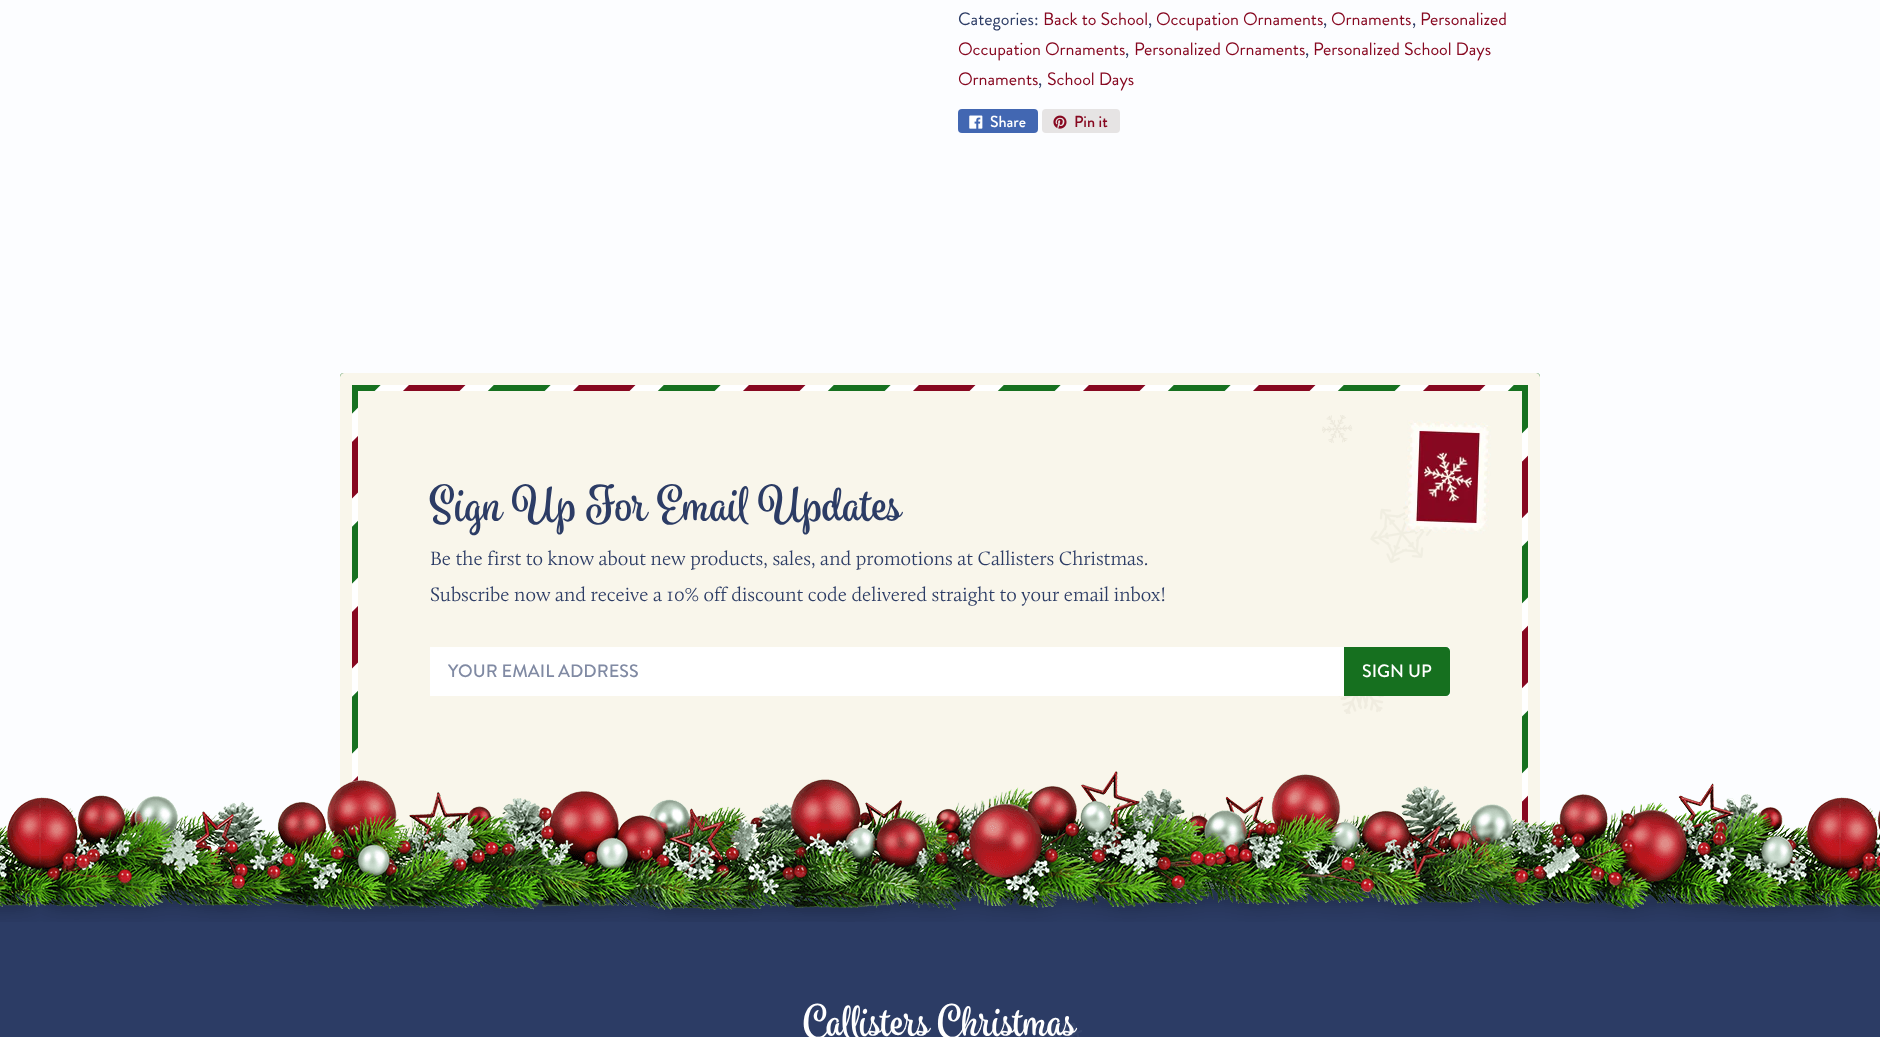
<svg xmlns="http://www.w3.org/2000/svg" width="1880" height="1037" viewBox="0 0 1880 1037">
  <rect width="100%" height="100%" fill="#2c3c65"/>
  <image x="1037" y="1023" width="45" height="14" href="img/1.png"/>
  <path d="M0 0h1880v872H0z" fill="#fcfdff"/>
  <rect x="958" y="109" width="80" height="24" rx="4" fill="#4267b2"/>
  <image x="969" y="115" width="14" height="14" href="img/2.png"/>
  <rect x="1042" y="109" width="78" height="24" rx="4" fill="#e6e4e4"/>
  <image x="1053" y="115" width="14" height="14" href="img/3.png"/>
  <image x="340" y="373" width="1200" height="499" href="img/4.png"/>
  <path d="M344 373H1536C1538 373 1540 375 1540 377V868C1540 870 1538 872 1536 872H344C342 872 340 870 340 868V377C340 375 342 373 344 373ZM352 385H1528V872H352V868Z" fill="#f9f6eb" fill-rule="evenodd"/>
  <path d="M358 391h1164v475H358z" fill="#f9f6eb"/>
  <image x="1322" y="415" width="110" height="299" href="img/5.png"/>
  <image x="1405" y="420" width="86" height="114" href="img/6.png"/>
  <path d="M430 647h1020v49H430z" fill="#fff"/>
  <path d="M1344 647H1446C1448 647 1450 649 1450 651V692C1450 694 1448 696 1446 696H1344Z" fill="#16701f"/>
  <image x="0" y="771" width="1880" height="151" href="img/7.png"/>
  <text x="958" y="25" font-family="Brandon Grotesque" font-size="18" fill="#2c3c65">Categories:</text>
  <text x="1043" y="25" font-family="Brandon Grotesque" font-size="18" fill="#870820">Back to School</text>
  <text x="1148" y="25" font-family="Brandon Grotesque" font-size="18" fill="#2c3c65">,</text>
  <text x="1156" y="25" font-family="Brandon Grotesque" font-size="18" fill="#870820">Occupation Ornaments</text>
  <text x="1323" y="25" font-family="Brandon Grotesque" font-size="18" fill="#2c3c65">,</text>
  <text x="1331" y="25" font-family="Brandon Grotesque" font-size="18" fill="#870820">Ornaments</text>
  <text x="1412" y="25" font-family="Brandon Grotesque" font-size="18" fill="#2c3c65">,</text>
  <g font-family="Brandon Grotesque" font-size="18" fill="#870820">
    <text x="1420" y="25">Personalized</text>
    <text x="958" y="55">Occupation Ornaments</text>
  </g>
  <text x="1125" y="55" font-family="Brandon Grotesque" font-size="18" fill="#2c3c65">,</text>
  <text x="1134" y="55" font-family="Brandon Grotesque" font-size="18" fill="#870820">Personalized Ornaments</text>
  <text x="1305" y="55" font-family="Brandon Grotesque" font-size="18" fill="#2c3c65">,</text>
  <g font-family="Brandon Grotesque" font-size="18" fill="#870820">
    <text x="1313" y="55">Personalized School Days</text>
    <text x="958" y="85">Ornaments</text>
  </g>
  <text x="1038" y="85" font-family="Brandon Grotesque" font-size="18" fill="#2c3c65">,</text>
  <text x="1047" y="85" font-family="Brandon Grotesque" font-size="18" fill="#870820">School Days</text>
  <text x="990" y="127" font-family="Brandon Grotesque" font-size="16" font-weight="500" fill="#fff">Share</text>
  <text x="1074" y="127" font-family="Brandon Grotesque" font-size="16" font-weight="500" fill="#870820">Pin it</text>
  <text x="430" y="520" font-family="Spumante" font-size="48" font-weight="bold" fill="#2c3c65">Sign Up For Email Updates</text>
  <g font-family="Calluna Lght" font-size="20" font-weight="300" fill="#2c3c65">
    <text x="430" y="565">Be the first to know about new products, sales, and promotions at Callisters Christmas.</text>
    <text x="430" y="601">Subscribe now and receive a 10% off discount code delivered straight to your email inbox!</text>
  </g>
  <text x="448" y="677" font-family="Brandon Grotesque" font-size="18" font-weight="500" fill="#808aa3">YOUR EMAIL ADDRESS</text>
  <text x="1362" y="677" font-family="Brandon Grotesque" font-size="18" font-weight="500" fill="#fff">SIGN UP</text>
  <text x="804" y="1035" font-family="Spumante" font-size="42" font-weight="bold" fill="#fff">Callisters Christmas</text>
</svg>
